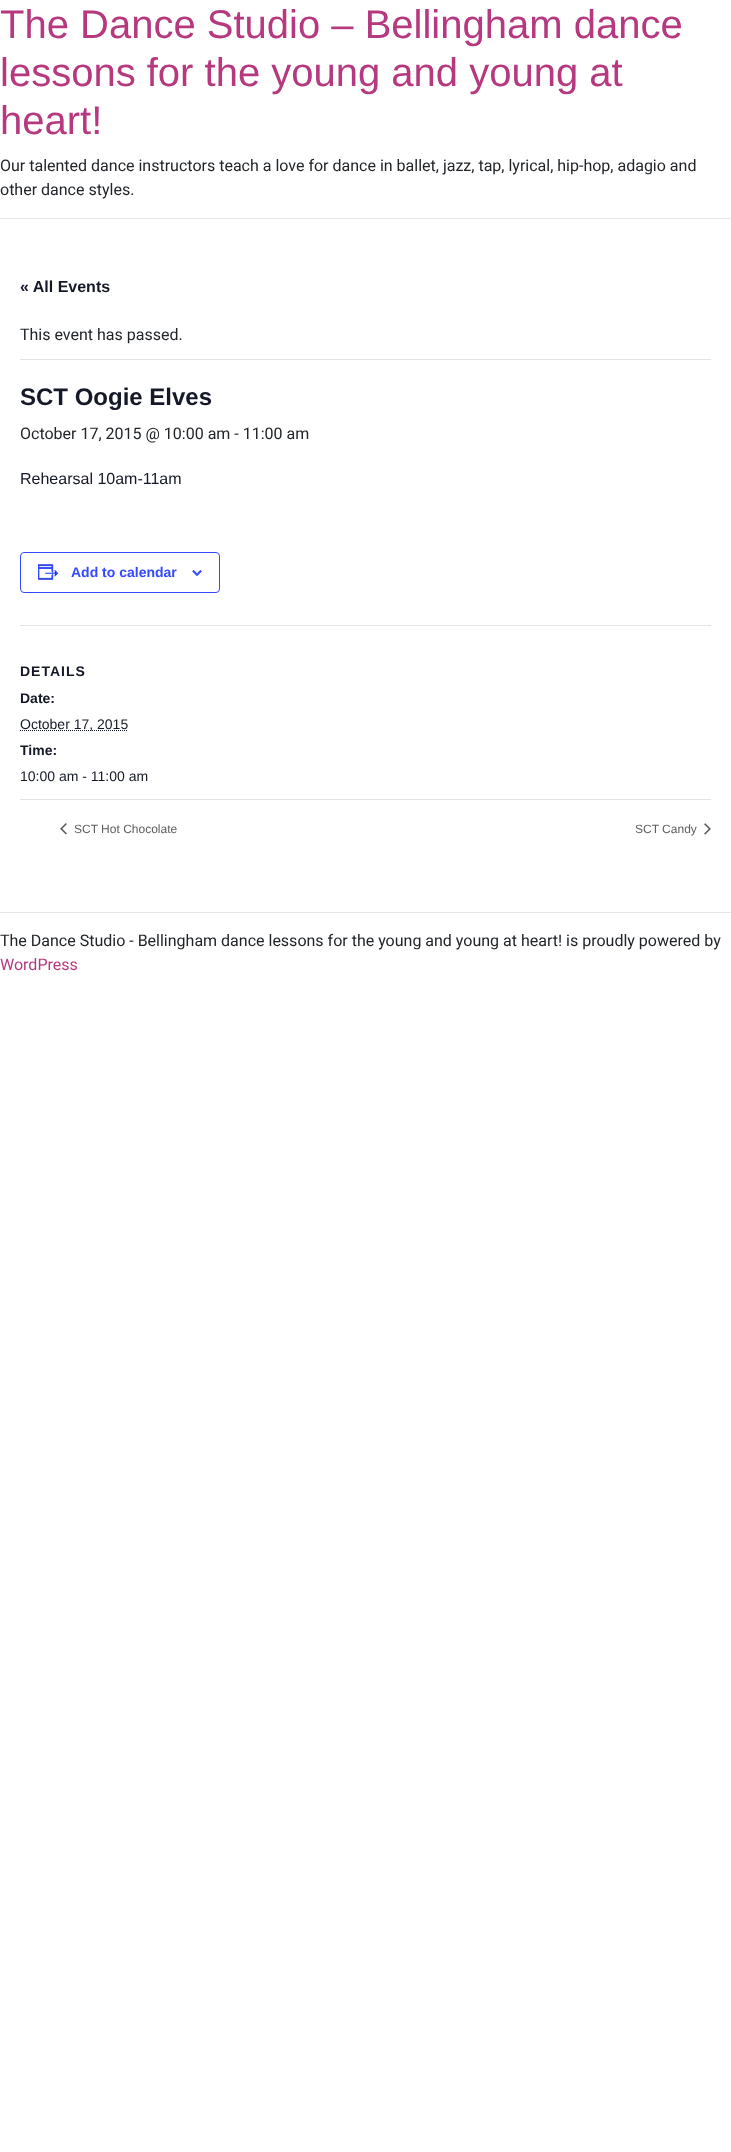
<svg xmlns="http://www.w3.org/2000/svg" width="731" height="2152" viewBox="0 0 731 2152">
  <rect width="100%" height="100%" fill="#fff"/>
  <path d="M0 218h731v1H0z" fill="#e6e6e6"/>
  <path d="M20 359h691v1H20z" fill="#e4e4e4"/>
  <rect x="20.5" y="552.5" width="199" height="40" rx="3.5" fill="none" stroke="#334aff"/>
  <image x="38" y="564" width="21" height="16" href="img/1.png"/>
  <image x="192" y="570" width="10" height="6" href="img/2.png"/>
  <path d="M20 625h691v1H20z" fill="#e4e4e4"/>
  <path d="M20 730.5H128" fill="none" stroke="#141827" stroke-dasharray="1 1"/>
  <path d="M20 799h691v1H20z" fill="#e4e4e4"/>
  <image x="60" y="823" width="7" height="12" href="img/3.png"/>
  <image x="704" y="823" width="7" height="12" href="img/4.png"/>
  <path d="M0 912h731v1H0z" fill="#e6e6e6"/>
  <g font-family="Liberation Sans" font-size="40" fill="#b6397f">
    <text x="0" y="38">The Dance Studio – Bellingham dance</text>
    <text x="0" y="86">lessons for the young and young at</text>
    <text x="0" y="134">heart!</text>
  </g>
  <g font-family="Roboto" font-size="16" fill="#212529">
    <text x="0" y="171">Our talented dance instructors teach a love for dance in ballet, jazz, tap, lyrical, hip-hop, adagio and</text>
    <text x="0" y="195">other dance styles.</text>
  </g>
  <text x="20" y="292" font-family="Liberation Sans" font-size="16" font-weight="bold" fill="#141827">« All Events</text>
  <text x="20" y="340" font-family="Roboto" font-size="16" fill="#212529">This event has passed.</text>
  <text x="20" y="405" font-family="Liberation Sans" font-size="24" font-weight="bold" fill="#141827">SCT Oogie Elves</text>
  <text x="20" y="439" font-family="Roboto" font-size="16" fill="#212529">October 17, 2015 @ 10:00 am - 11:00 am</text>
  <text x="20" y="484" font-family="Liberation Sans" font-size="16" fill="#141827">Rehearsal 10am-11am</text>
  <text x="71" y="577" font-family="Liberation Sans" font-size="14" font-weight="bold" fill="#334aff">Add to calendar</text>
  <text x="20" y="676" font-family="Liberation Sans" font-size="14" font-weight="bold" letter-spacing="1" fill="#141827">DETAILS</text>
  <text x="20" y="703" font-family="Liberation Sans" font-size="14" font-weight="bold" fill="#141827">Date:</text>
  <text x="20" y="729" font-family="Liberation Sans" font-size="14" fill="#141827">October 17, 2015</text>
  <text x="20" y="755" font-family="Liberation Sans" font-size="14" font-weight="bold" fill="#141827">Time:</text>
  <text x="20" y="781" font-family="Liberation Sans" font-size="14" fill="#141827">10:00 am - 11:00 am</text>
  <g font-family="Liberation Sans" font-size="12" fill="#5d5d5d">
    <text x="74" y="833">SCT Hot Chocolate</text>
    <text x="635" y="833">SCT Candy</text>
  </g>
  <text x="0" y="946" font-family="Roboto" font-size="16" fill="#212529">The Dance Studio - Bellingham dance lessons for the young and young at heart! is proudly powered by</text>
  <text x="0" y="970" font-family="Roboto" font-size="16" fill="#b6397f">WordPress</text>
</svg>
